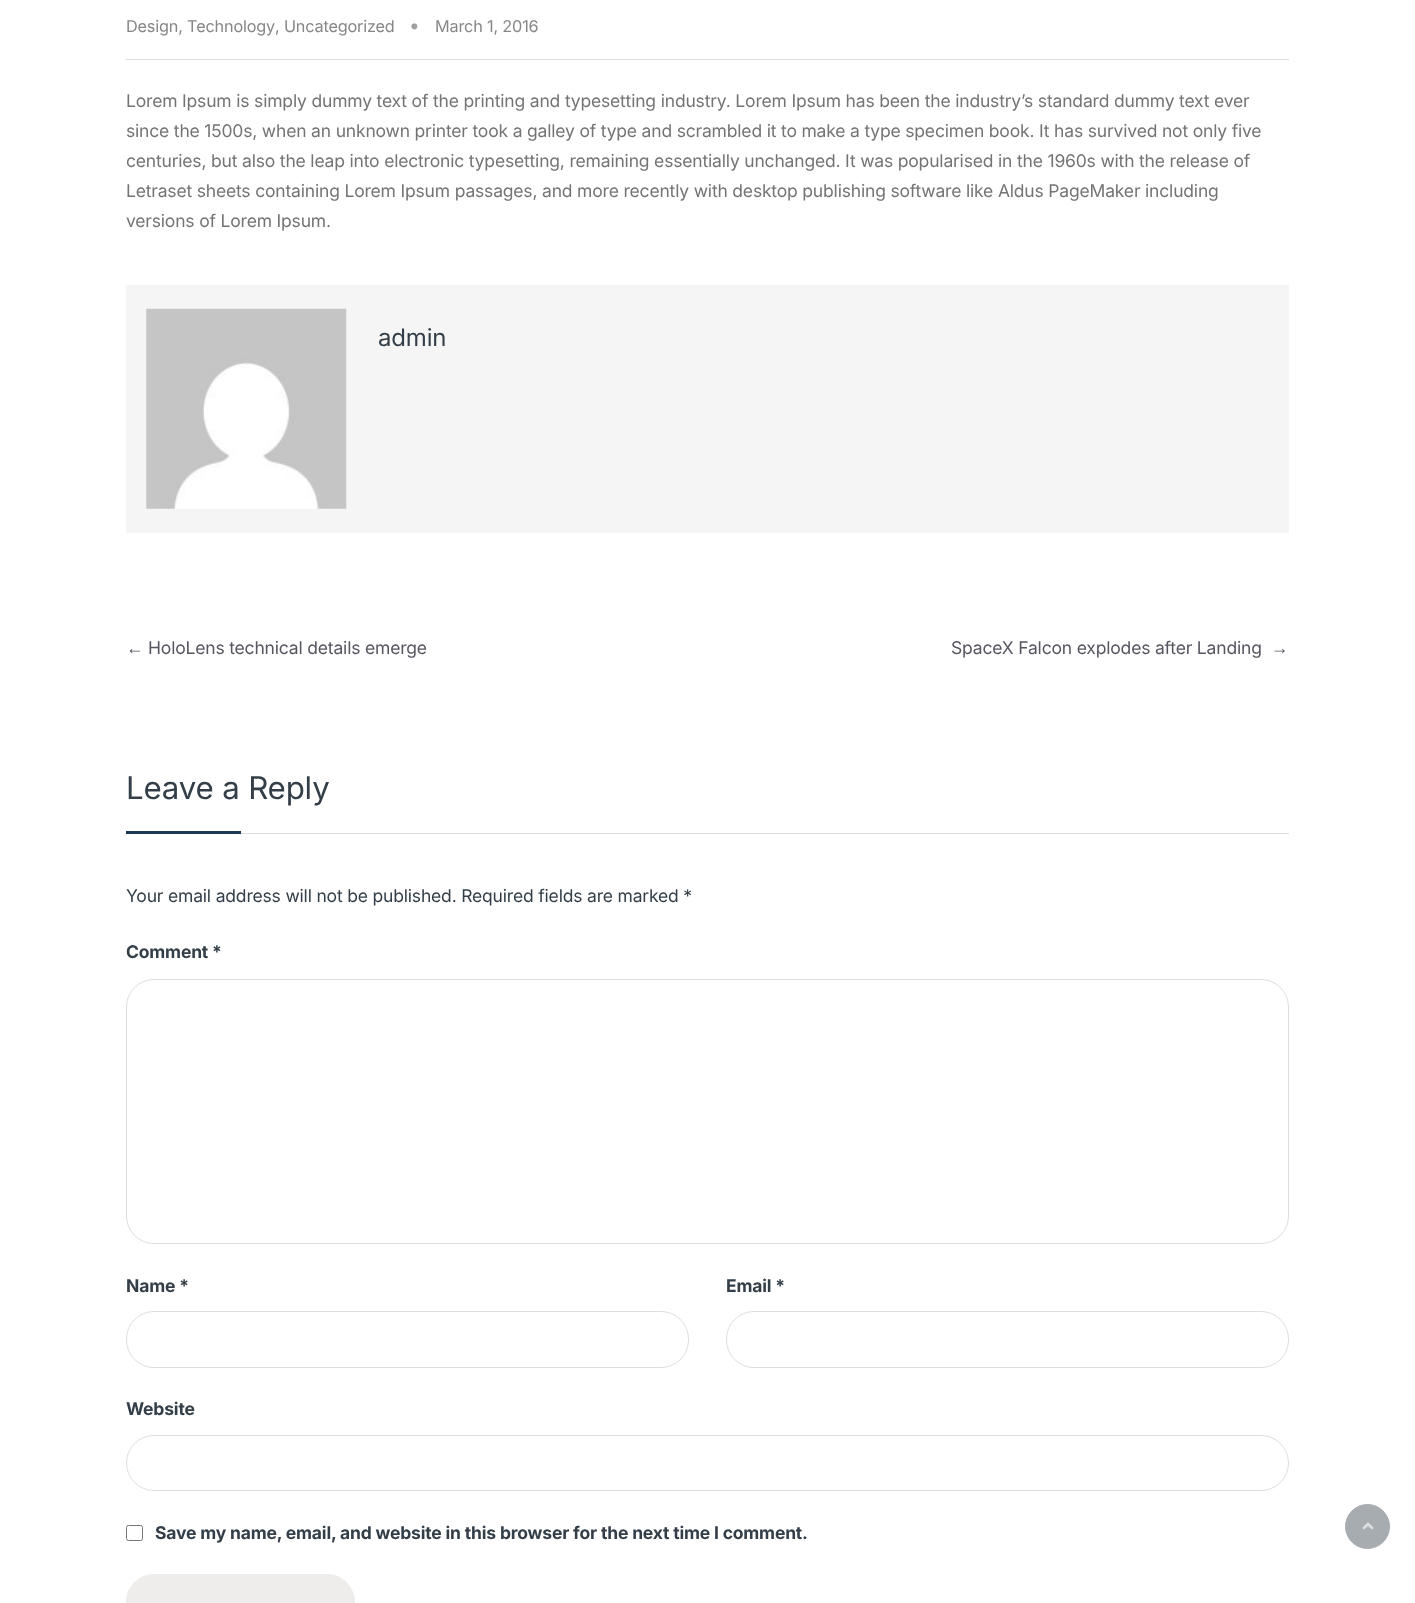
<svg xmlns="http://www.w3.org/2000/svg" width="1415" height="1603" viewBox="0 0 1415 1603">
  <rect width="100%" height="100%" fill="#fff"/>
  <path d="M126 59h1163v1H126z" fill="#ddd"/>
  <image x="411" y="23" width="7" height="7" href="img/1.png"/>
  <path d="M126 285h1163v248H126z" fill="#f5f5f5"/>
  <image x="146" y="308" width="201" height="201" href="img/2.png"/>
  <path d="M241 833h1048v1H241z" fill="#ddd"/>
  <path d="M126 831h115v3H126z" fill="#1e3957"/>
  <rect x="126.5" y="979.5" width="1162" height="264" rx="27.5" fill="none" stroke="#ddd"/>
  <rect x="126.5" y="1311.5" width="562" height="56" rx="27.5" fill="none" stroke="#ddd"/>
  <rect x="726.5" y="1311.5" width="562" height="56" rx="27.5" fill="none" stroke="#ddd"/>
  <rect x="126.5" y="1435.5" width="1162" height="55" rx="27.5" fill="none" stroke="#ddd"/>
  <rect x="126.5" y="1525.5" width="16" height="15" rx="2" fill="none" stroke="#767676"/>
  <rect x="126.5" y="1574.5" width="228" height="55" rx="27.5" fill="#efecec" stroke="#efecec"/>
  <circle cx="1367.5" cy="1526.5" r="22" fill="#a7acb1" stroke="#a7acb1"/>
  <image x="1362" y="1522" width="12" height="8" href="img/3.png"/>
  <g font-family="Inter" font-size="16.25" letter-spacing="-0.18" fill="#878787">
    <text x="126" y="32">Design, Technology</text>
    <text x="275" y="32">, Uncategorized</text>
    <text x="435" y="32">March 1, 2016</text>
  </g>
  <g font-family="Inter" font-size="17.5" letter-spacing="-0.18" fill="#747474">
    <text x="126" y="107">Lorem Ipsum is simply dummy text of the printing and typesetting industry. Lorem Ipsum has been the industry’s standard dummy text ever</text>
    <text x="126" y="137">since the 1500s, when an unknown printer took a galley of type and scrambled it to make a type specimen book. It has survived not only five</text>
    <text x="126" y="167">centuries, but also the leap into electronic typesetting, remaining essentially unchanged. It was popularised in the 1960s with the release of</text>
    <text x="126" y="197">Letraset sheets containing Lorem Ipsum passages, and more recently with desktop publishing software like Aldus PageMaker including</text>
    <text x="126" y="227">versions of Lorem Ipsum.</text>
  </g>
  <text x="378" y="346" font-family="Inter" font-size="24" letter-spacing="-0.18" fill="#333e48">admin</text>
  <text x="126" y="654" font-family="Liberation Sans" font-size="17.5" letter-spacing="-0.18" fill="#575560">←</text>
  <g font-family="Inter" font-size="17.5" letter-spacing="-0.18" fill="#575560">
    <text x="148" y="654">HoloLens technical details emerge</text>
    <text x="951" y="654">SpaceX Falcon explodes after Landing</text>
  </g>
  <text x="1271" y="654" font-family="Liberation Sans" font-size="17.5" letter-spacing="-0.18" fill="#575560">→</text>
  <text x="126" y="799" font-family="Inter" font-size="31.25" letter-spacing="-0.18" fill="#333e48">Leave a Reply</text>
  <text x="126" y="902" font-family="Inter" font-size="17.5" letter-spacing="-0.18" fill="#333e48">Your email address will not be published. Required fields are marked *</text>
  <g font-family="Inter" font-size="17.5" font-weight="bold" letter-spacing="-0.18" fill="#333e48">
    <text x="126" y="958">Comment *</text>
    <text x="126" y="1292">Name *</text>
    <text x="726" y="1292">Email *</text>
    <text x="126" y="1415">Website</text>
    <text x="155" y="1539">Save my name, email, and website in this browser for the next time I comment.</text>
  </g>
</svg>
